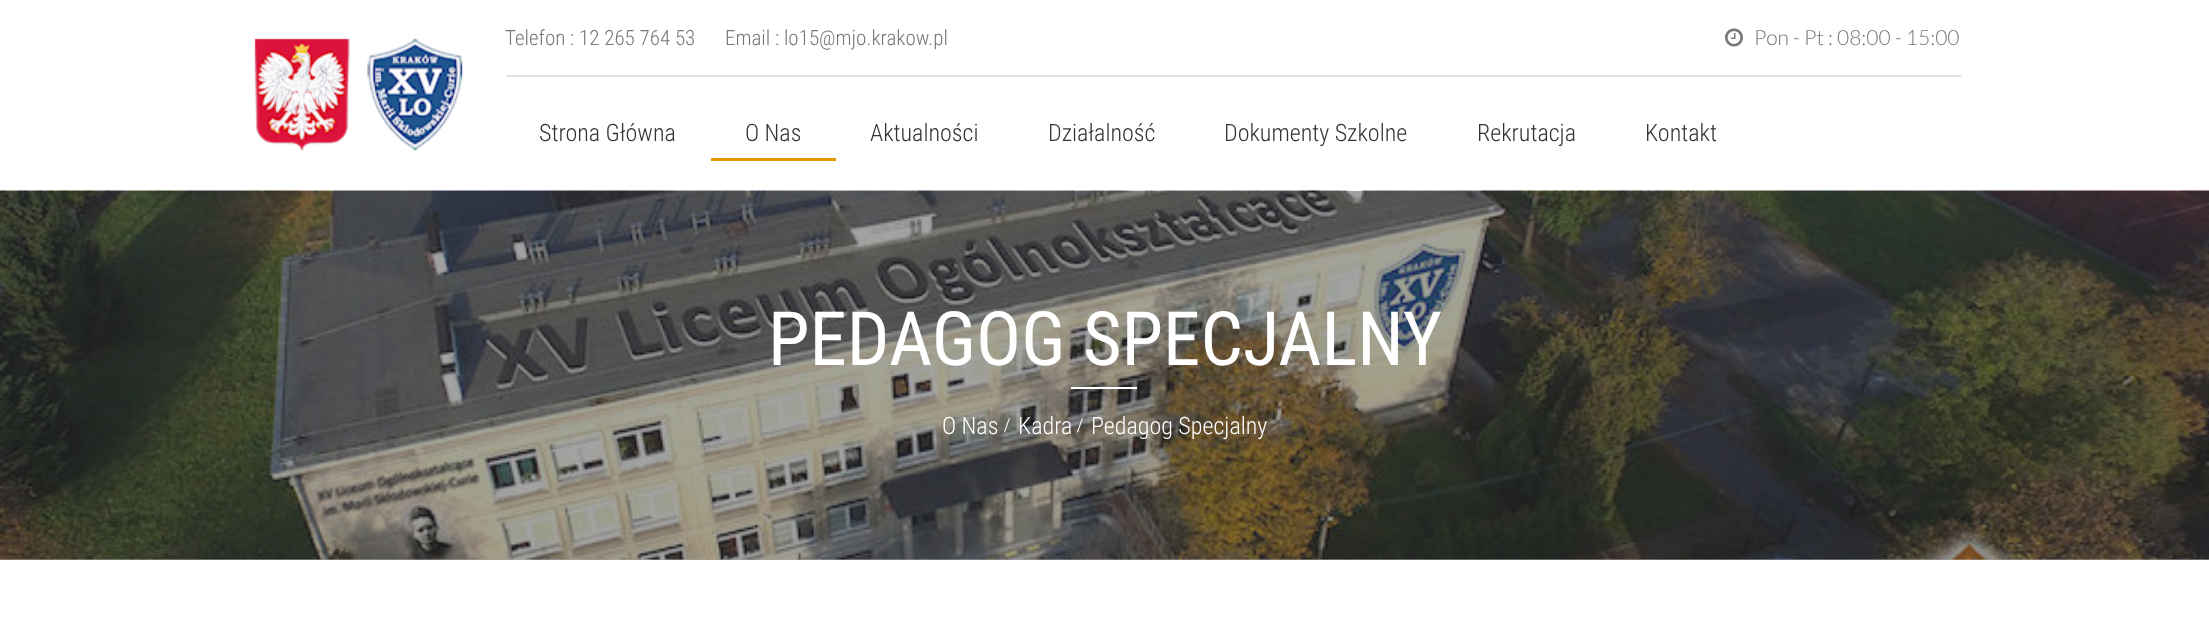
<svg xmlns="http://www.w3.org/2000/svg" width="2209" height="618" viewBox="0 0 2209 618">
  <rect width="100%" height="100%" fill="#fff"/>
  <path d="M0 559h2209v1H0z" fill="#a3a3a3"/>
  <image x="254" y="38" width="209" height="113" href="img/1.png"/>
  <path d="M506 75h1455v2H506z" fill="#e1e1e1"/>
  <image x="1725" y="28" width="18" height="19" href="img/2.png"/>
  <path d="M711 158h125v3H711z" fill="#e79800"/>
  <image x="0" y="190" width="2209" height="370" href="img/3.png"/>
  <path d="M1071 387h66v2H1071z" fill="#fff"/>
  <g font-family="Roboto Condensed" font-size="21" font-weight="300" fill="#777">
    <text x="505" y="45">Telefon : 12 265 764 53</text>
    <text x="725" y="45">Email : lo15@mjo.krakow.pl</text>
  </g>
  <text x="1754" y="45" font-family="Lato" font-size="21" font-weight="300" fill="#777">Pon - Pt : 08:00 - 15:00</text>
  <g font-family="Roboto Condensed" font-size="24" font-weight="300" fill="#333">
    <text x="539" y="141">Strona Główna</text>
    <text x="745" y="141">O Nas</text>
    <text x="870" y="141">Aktualności</text>
    <text x="1048" y="141">Działalność</text>
    <text x="1224" y="141">Dokumenty Szkolne</text>
    <text x="1477" y="141">Rekrutacja</text>
    <text x="1645" y="141">Kontakt</text>
  </g>
  <text x="768" y="365" font-family="Roboto Condensed" font-size="75" fill="#fff">PEDAGOG SPECJALNY</text>
  <text x="942" y="434" font-family="Roboto Condensed" font-size="24" font-weight="300" fill="#fff">O Nas</text>
  <text x="1004" y="432" font-family="Liberation Serif" font-size="21" fill="#fff">/</text>
  <text x="1018" y="434" font-family="Roboto Condensed" font-size="24" font-weight="300" fill="#fff">Kadra</text>
  <text x="1077" y="432" font-family="Liberation Serif" font-size="21" fill="#fff">/</text>
  <text x="1091" y="434" font-family="Roboto Condensed" font-size="24" font-weight="300" fill="#fff">Pedagog Specjalny</text>
</svg>
